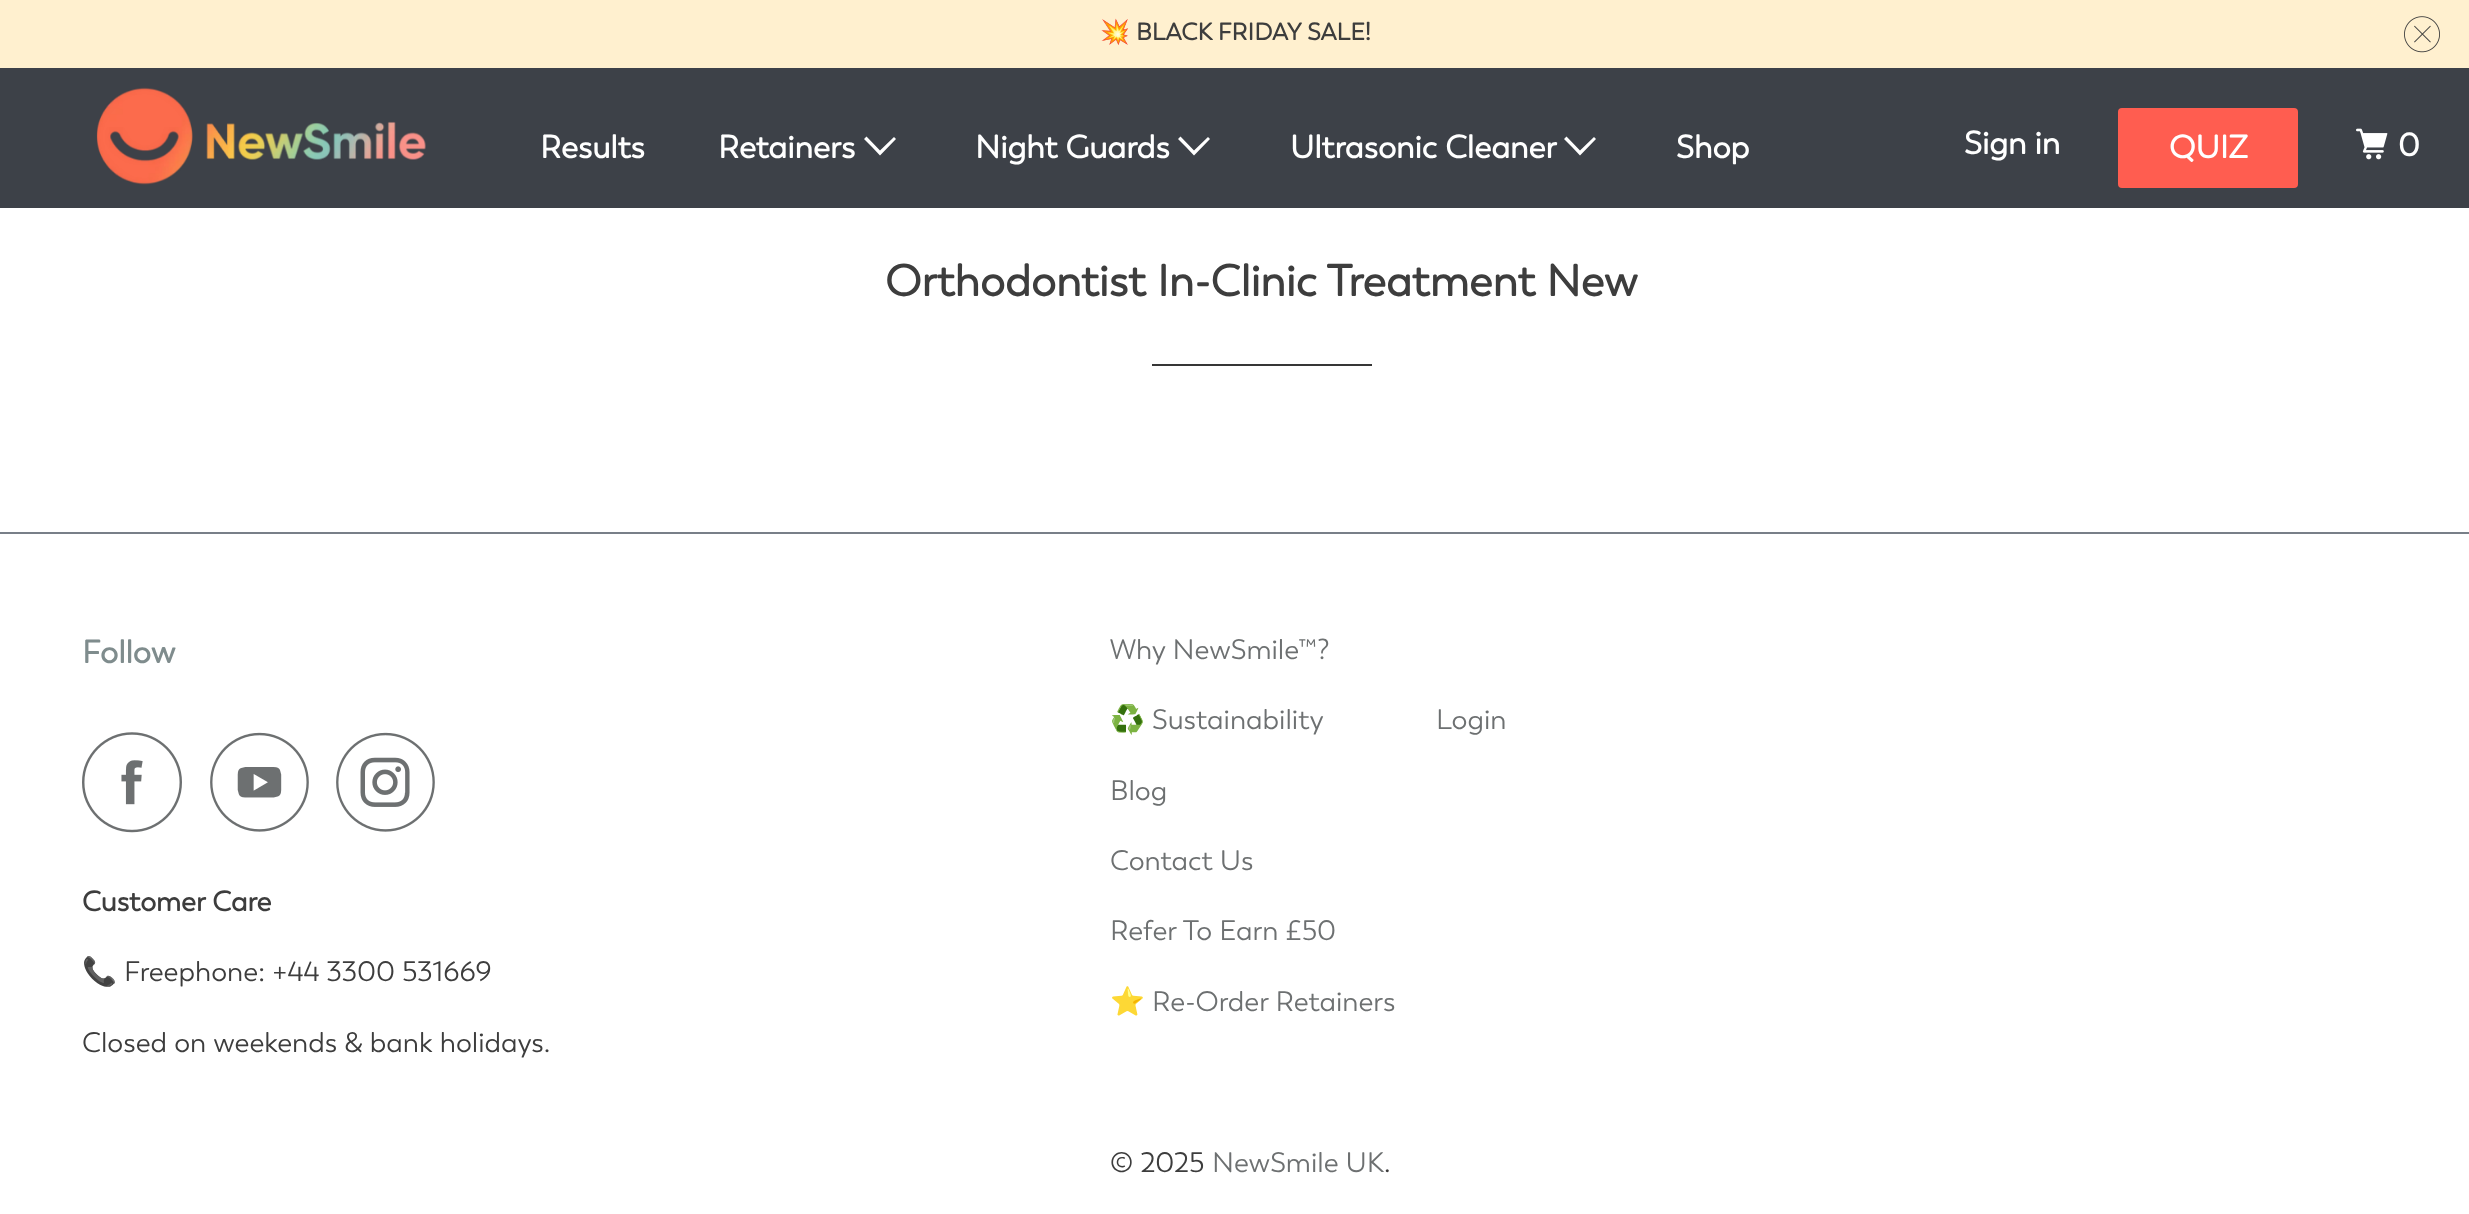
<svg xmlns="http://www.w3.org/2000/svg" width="2469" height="1214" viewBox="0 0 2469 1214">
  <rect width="100%" height="100%" fill="#fff"/>
  <path d="M0 0h2469v68H0z" fill="#fff0cf"/>
  <image x="2404" y="16" width="36" height="37" href="img/1.png"/>
  <path d="M0 68h2469v140H0z" fill="#3d4148"/>
  <image x="96" y="87" width="330" height="98" href="img/2.png"/>
  <path d="M872 147L864 139L866.5 136.5L880 150.5L894 137L896 139L880 155.5Z" fill="#fff"/>
  <path d="M1186 147L1178 139L1180.5 136.5L1194 150.5L1208 137L1210 139L1194 155.5Z" fill="#fff"/>
  <path d="M1572 147L1564 139L1566.5 136.5L1580 150.5L1594 137L1596 139L1580 155.5Z" fill="#fff"/>
  <rect x="2118" y="108" width="180" height="80" rx="4" fill="#ff5d50"/>
  <image x="2356" y="128" width="32" height="32" href="img/3.png"/>
  <path d="M1152 364h220v2H1152z" fill="#363636"/>
  <path d="M0 532h2469v2H0z" fill="#787f88"/>
  <image x="82" y="732" width="100" height="101" href="img/4.png"/>
  <image x="210" y="732" width="99" height="100" href="img/5.png"/>
  <image x="336" y="732" width="99" height="100" href="img/6.png"/>
  <text x="1100" y="40" font-family="Noto Color Emoji" font-size="24" font-weight="bold" fill="#3d3d3d">💥</text>
  <text x="1136" y="40" font-family="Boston" font-size="24" font-weight="bold" fill="#3d3d3d">BLACK FRIDAY SALE!</text>
  <g font-family="Boston" font-size="32" font-weight="bold" fill="#fff">
    <text x="540" y="158">Results</text>
    <text x="718" y="158">Retainers</text>
    <text x="975" y="158">Night Guards</text>
    <text x="1290" y="158">Ultrasonic Cleaner</text>
    <text x="1676" y="158">Shop</text>
    <text x="1964" y="154">Sign in</text>
    <text x="2169" y="158">QUIZ</text>
    <text x="2398" y="156">0</text>
  </g>
  <text x="885" y="296" font-family="Boston" font-size="44" font-weight="bold" fill="#3d3d3d">Orthodontist In-Clinic Treatment New</text>
  <text x="82" y="663" font-family="Boston" font-size="32" font-weight="bold" fill="#7f8c8d">Follow</text>
  <text x="82" y="911" font-family="Boston" font-size="28" font-weight="bold" fill="#3d3d3d">Customer Care</text>
  <text x="82" y="981" font-family="Noto Color Emoji" font-size="28" fill="#3d3d3d">📞</text>
  <g font-family="Boston" font-size="28" fill="#3d3d3d">
    <text x="124" y="981">Freephone: +44 3300 531669</text>
    <text x="82" y="1052">Closed on weekends &amp; bank holidays.</text>
  </g>
  <text x="1110" y="659" font-family="Boston" font-size="28" fill="#6d7071">Why NewSmile™?</text>
  <text x="1110" y="729" font-family="Noto Color Emoji" font-size="28" fill="#3d3d3d">♻️</text>
  <g font-family="Boston" font-size="28" fill="#6d7071">
    <text x="1152" y="729">Sustainability</text>
    <text x="1436" y="729">Login</text>
    <text x="1110" y="800">Blog</text>
    <text x="1110" y="870">Contact Us</text>
    <text x="1110" y="940">Refer To Earn £50</text>
  </g>
  <text x="1110" y="1011" font-family="Noto Color Emoji" font-size="28" fill="#6d7071">⭐️</text>
  <text x="1152" y="1011" font-family="Boston" font-size="28" fill="#6d7071">Re-Order Retainers</text>
  <text x="1110" y="1172" font-family="Boston" font-size="28" fill="#3d3d3d">© 2025</text>
  <text x="1212" y="1172" font-family="Boston" font-size="28" fill="#6d7071">NewSmile UK</text>
  <text x="1384" y="1172" font-family="Boston" font-size="28" fill="#3d3d3d">.</text>
</svg>
